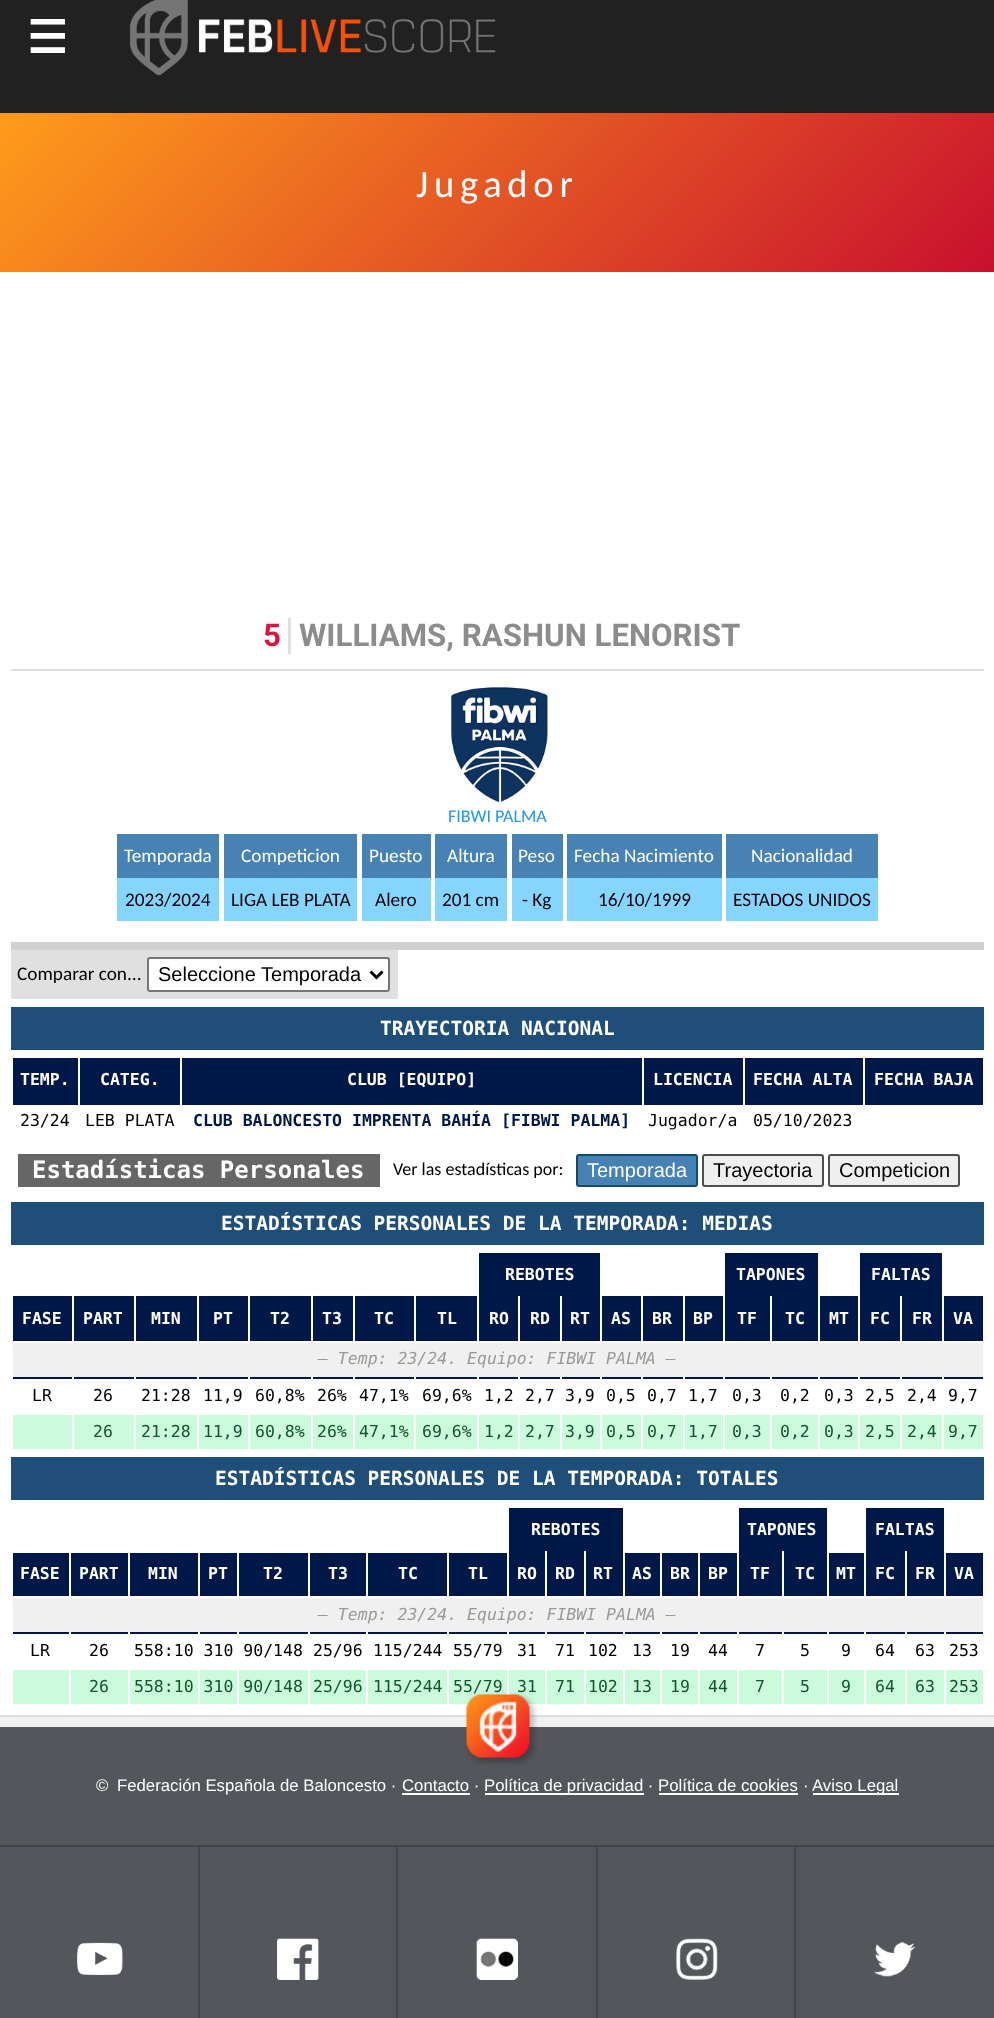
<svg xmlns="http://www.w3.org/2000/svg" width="994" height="2018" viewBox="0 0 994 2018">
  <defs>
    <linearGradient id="g1" gradientUnits="userSpaceOnUse" x1="209" y1="-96" x2="786" y2="480"><stop offset="0" stop-color="#ff9c1b"/><stop offset="1" stop-color="#c8102e"/></linearGradient>
  </defs>
  <rect width="100%" height="100%" fill="#53565a"/>
  <path d="M0 0h994v113H0z" fill="#212121"/>
  <image x="129" y="0" width="367" height="76" href="img/1.png"/>
  <path d="M0 272h994v1443H0z" fill="#fff"/>
  <path d="M0 113h994v159H0z" fill="url(#g1)"/>
  <path d="M11 942h973v8H11z" fill="#d0d0d0"/>
  <path d="M11 669h973v2H11z" fill="#e0e0e0"/>
  <path d="M288 618h3v36H288z" fill="#e0e0e0"/>
  <image x="449" y="686" width="100" height="118" href="img/2.png"/>
  <path d="M117 834h102v44H117z" fill="#4682b4"/>
  <path d="M117 878h102v43H117z" fill="#85d5ff"/>
  <path d="M224 834h133v44H224z" fill="#4682b4"/>
  <path d="M224 878h133v43H224z" fill="#85d5ff"/>
  <path d="M362 834h69v44H362z" fill="#4682b4"/>
  <path d="M362 878h69v43H362z" fill="#85d5ff"/>
  <path d="M435 834h72v44H435z" fill="#4682b4"/>
  <path d="M435 878h72v43H435z" fill="#85d5ff"/>
  <path d="M512 834h51v44H512z" fill="#4682b4"/>
  <path d="M512 878h51v43H512z" fill="#85d5ff"/>
  <path d="M567 834h155v44H567z" fill="#4682b4"/>
  <path d="M567 878h155v43H567z" fill="#85d5ff"/>
  <path d="M726 834h152v44H726z" fill="#4682b4"/>
  <path d="M726 878h152v43H726z" fill="#85d5ff"/>
  <path d="M11 950h387v49H11z" fill="#e0e0e0"/>
  <rect x="148" y="958" width="241" height="33" rx="2" fill="#fff" stroke="#767676" stroke-width="2"/>
  <path d="M370.5 971.5L376.5 977.5L382.5 971.5" fill="none" stroke="#000" stroke-width="3"/>
  <path d="M11 1007h973v43H11z" fill="#1f4e78"/>
  <path d="M13 1058h65v45H13z" fill="#001848"/>
  <path d="M80 1058h100v45H80z" fill="#001848"/>
  <path d="M182 1058h460v45H182z" fill="#001848"/>
  <path d="M644 1058h99v45H644z" fill="#001848"/>
  <path d="M745 1058h118v45H745z" fill="#001848"/>
  <path d="M865 1058h118v45H865z" fill="#001848"/>
  <path d="M11 1103h973v2H11z" fill="#001848"/>
  <path d="M983 1103h1v2H983z" fill="#fff"/>
  <path d="M78 1103h2v2H78z" fill="#fff"/>
  <path d="M11 1103h2v2H11z" fill="#fff"/>
  <path d="M180 1103h2v2H180z" fill="#fff"/>
  <path d="M642 1103h2v2H642z" fill="#fff"/>
  <path d="M743 1103h2v2H743z" fill="#fff"/>
  <path d="M863 1103h2v2H863z" fill="#fff"/>
  <path d="M18 1154h362v33H18z" fill="#666"/>
  <rect x="577" y="1155" width="120" height="31" rx="2" fill="#4682b4" stroke="#144a6b" stroke-width="2"/>
  <rect x="703" y="1155" width="120" height="31" rx="2" fill="#efefef" stroke="#4f4f4f" stroke-width="2"/>
  <rect x="829" y="1155" width="130" height="31" rx="2" fill="#efefef" stroke="#4f4f4f" stroke-width="2"/>
  <path d="M11 1202h973v43H11z" fill="#1f4e78"/>
  <path d="M479 1253h121v43H479z" fill="#001848"/>
  <path d="M725 1253h93v43H725z" fill="#001848"/>
  <path d="M860 1253h82v43H860z" fill="#001848"/>
  <path d="M13 1296h59v45H13z" fill="#001848"/>
  <path d="M74 1296h60v45H74z" fill="#001848"/>
  <path d="M136 1296h61v45H136z" fill="#001848"/>
  <path d="M199 1296h49v45H199z" fill="#001848"/>
  <path d="M250 1296h61v45H250z" fill="#001848"/>
  <path d="M313 1296h40v45H313z" fill="#001848"/>
  <path d="M355 1296h59v45H355z" fill="#001848"/>
  <path d="M416 1296h61v45H416z" fill="#001848"/>
  <path d="M479 1296h39v45H479z" fill="#001848"/>
  <path d="M520 1296h40v45H520z" fill="#001848"/>
  <path d="M562 1296h38v45H562z" fill="#001848"/>
  <path d="M602 1296h39v45H602z" fill="#001848"/>
  <path d="M643 1296h40v45H643z" fill="#001848"/>
  <path d="M685 1296h38v45H685z" fill="#001848"/>
  <path d="M725 1296h45v45H725z" fill="#001848"/>
  <path d="M772 1296h46v45H772z" fill="#001848"/>
  <path d="M820 1296h38v45H820z" fill="#001848"/>
  <path d="M860 1296h40v45H860z" fill="#001848"/>
  <path d="M902 1296h40v45H902z" fill="#001848"/>
  <path d="M944 1296h39v45H944z" fill="#001848"/>
  <path d="M13 1343h970v34H13z" fill="#f0f0f0"/>
  <path d="M11 1377h973v2H11z" fill="#001848"/>
  <path d="M72 1377h2v2H72z" fill="#fff"/>
  <path d="M11 1377h2v2H11z" fill="#fff"/>
  <path d="M134 1377h2v2H134z" fill="#fff"/>
  <path d="M197 1377h2v2H197z" fill="#fff"/>
  <path d="M248 1377h2v2H248z" fill="#fff"/>
  <path d="M311 1377h2v2H311z" fill="#fff"/>
  <path d="M353 1377h2v2H353z" fill="#fff"/>
  <path d="M414 1377h2v2H414z" fill="#fff"/>
  <path d="M477 1377h2v2H477z" fill="#fff"/>
  <path d="M518 1377h2v2H518z" fill="#fff"/>
  <path d="M560 1377h2v2H560z" fill="#fff"/>
  <path d="M600 1377h2v2H600z" fill="#fff"/>
  <path d="M641 1377h2v2H641z" fill="#fff"/>
  <path d="M683 1377h2v2H683z" fill="#fff"/>
  <path d="M723 1377h2v2H723z" fill="#fff"/>
  <path d="M770 1377h2v2H770z" fill="#fff"/>
  <path d="M818 1377h2v2H818z" fill="#fff"/>
  <path d="M858 1377h2v2H858z" fill="#fff"/>
  <path d="M900 1377h2v2H900z" fill="#fff"/>
  <path d="M942 1377h2v2H942z" fill="#fff"/>
  <path d="M983 1377h1v2H983z" fill="#fff"/>
  <path d="M13 1415h970v34H13z" fill="#ccfadc"/>
  <path d="M72 1413h2v38H72z" fill="#fff"/>
  <path d="M134 1413h2v38H134z" fill="#fff"/>
  <path d="M197 1413h2v38H197z" fill="#fff"/>
  <path d="M248 1413h2v38H248z" fill="#fff"/>
  <path d="M311 1413h2v38H311z" fill="#fff"/>
  <path d="M353 1413h2v38H353z" fill="#fff"/>
  <path d="M414 1413h2v38H414z" fill="#fff"/>
  <path d="M477 1413h2v38H477z" fill="#fff"/>
  <path d="M518 1413h2v38H518z" fill="#fff"/>
  <path d="M560 1413h2v38H560z" fill="#fff"/>
  <path d="M600 1413h2v38H600z" fill="#fff"/>
  <path d="M641 1413h2v38H641z" fill="#fff"/>
  <path d="M683 1413h2v38H683z" fill="#fff"/>
  <path d="M723 1413h2v38H723z" fill="#fff"/>
  <path d="M770 1413h2v38H770z" fill="#fff"/>
  <path d="M818 1413h2v38H818z" fill="#fff"/>
  <path d="M858 1413h2v38H858z" fill="#fff"/>
  <path d="M900 1413h2v38H900z" fill="#fff"/>
  <path d="M942 1413h2v38H942z" fill="#fff"/>
  <path d="M11 1457h973v43H11z" fill="#1f4e78"/>
  <path d="M509 1508h114v45H509z" fill="#001848"/>
  <path d="M739 1508h88v45H739z" fill="#001848"/>
  <path d="M866 1508h78v45H866z" fill="#001848"/>
  <path d="M13 1553h56v43H13z" fill="#001848"/>
  <path d="M71 1553h57v43H71z" fill="#001848"/>
  <path d="M130 1553h68v43H130z" fill="#001848"/>
  <path d="M200 1553h37v43H200z" fill="#001848"/>
  <path d="M239 1553h69v43H239z" fill="#001848"/>
  <path d="M310 1553h56v43H310z" fill="#001848"/>
  <path d="M368 1553h79v43H368z" fill="#001848"/>
  <path d="M449 1553h58v43H449z" fill="#001848"/>
  <path d="M509 1553h36v43H509z" fill="#001848"/>
  <path d="M547 1553h37v43H547z" fill="#001848"/>
  <path d="M545 1551h2v2H545z" fill="#fff"/>
  <path d="M586 1553h37v43H586z" fill="#001848"/>
  <path d="M584 1551h2v2H584z" fill="#fff"/>
  <path d="M625 1553h35v43H625z" fill="#001848"/>
  <path d="M662 1553h36v43H662z" fill="#001848"/>
  <path d="M700 1553h37v43H700z" fill="#001848"/>
  <path d="M739 1553h43v43H739z" fill="#001848"/>
  <path d="M784 1553h43v43H784z" fill="#001848"/>
  <path d="M782 1551h2v2H782z" fill="#fff"/>
  <path d="M829 1553h35v43H829z" fill="#001848"/>
  <path d="M866 1553h39v43H866z" fill="#001848"/>
  <path d="M907 1553h37v43H907z" fill="#001848"/>
  <path d="M905 1551h2v2H905z" fill="#fff"/>
  <path d="M946 1553h37v43H946z" fill="#001848"/>
  <path d="M13 1598h970v34H13z" fill="#f0f0f0"/>
  <path d="M11 1632h973v2H11z" fill="#001848"/>
  <path d="M237 1632h2v2H237z" fill="#fff"/>
  <path d="M308 1632h2v2H308z" fill="#fff"/>
  <path d="M69 1632h2v2H69z" fill="#fff"/>
  <path d="M11 1632h2v2H11z" fill="#fff"/>
  <path d="M128 1632h2v2H128z" fill="#fff"/>
  <path d="M198 1632h2v2H198z" fill="#fff"/>
  <path d="M366 1632h2v2H366z" fill="#fff"/>
  <path d="M447 1632h2v2H447z" fill="#fff"/>
  <path d="M507 1632h2v2H507z" fill="#fff"/>
  <path d="M545 1632h2v2H545z" fill="#fff"/>
  <path d="M584 1632h2v2H584z" fill="#fff"/>
  <path d="M623 1632h2v2H623z" fill="#fff"/>
  <path d="M660 1632h2v2H660z" fill="#fff"/>
  <path d="M698 1632h2v2H698z" fill="#fff"/>
  <path d="M737 1632h2v2H737z" fill="#fff"/>
  <path d="M782 1632h2v2H782z" fill="#fff"/>
  <path d="M827 1632h2v2H827z" fill="#fff"/>
  <path d="M864 1632h2v2H864z" fill="#fff"/>
  <path d="M905 1632h2v2H905z" fill="#fff"/>
  <path d="M944 1632h2v2H944z" fill="#fff"/>
  <path d="M983 1632h1v2H983z" fill="#fff"/>
  <path d="M13 1670h970v34H13z" fill="#ccfadc"/>
  <path d="M69 1668h2v38H69z" fill="#fff"/>
  <path d="M198 1668h2v38H198z" fill="#fff"/>
  <path d="M237 1668h2v38H237z" fill="#fff"/>
  <path d="M128 1668h2v38H128z" fill="#fff"/>
  <path d="M308 1668h2v38H308z" fill="#fff"/>
  <path d="M366 1668h2v38H366z" fill="#fff"/>
  <path d="M447 1668h2v38H447z" fill="#fff"/>
  <path d="M507 1668h2v27H507z" fill="#fff"/>
  <path d="M545 1668h2v38H545z" fill="#fff"/>
  <path d="M584 1668h2v38H584z" fill="#fff"/>
  <path d="M623 1668h2v38H623z" fill="#fff"/>
  <path d="M660 1668h2v38H660z" fill="#fff"/>
  <path d="M698 1668h2v38H698z" fill="#fff"/>
  <path d="M737 1668h2v38H737z" fill="#fff"/>
  <path d="M782 1668h2v38H782z" fill="#fff"/>
  <path d="M827 1668h2v38H827z" fill="#fff"/>
  <path d="M864 1668h2v38H864z" fill="#fff"/>
  <path d="M905 1668h2v38H905z" fill="#fff"/>
  <path d="M944 1668h2v38H944z" fill="#fff"/>
  <path d="M0 1717h994v10H0z" fill="#f0f0f0"/>
  <path d="M0 1715h994v2H0z" fill="#e0e0e0"/>
  <path d="M402 1793h68v2H402z" fill="#fff"/>
  <path d="M485 1793h159v2H485z" fill="#fff"/>
  <path d="M813 1793h86v2H813z" fill="#fff"/>
  <path d="M659 1793h139v2H659z" fill="#fff"/>
  <path d="M0 1845h994v2H0z" fill="#444"/>
  <image x="77" y="1942" width="46" height="33" href="img/4.png"/>
  <image x="277" y="1938" width="42" height="42" href="img/5.png"/>
  <path d="M198 1847h2v171H198z" fill="#444"/>
  <image x="476" y="1938" width="42" height="42" href="img/6.png"/>
  <path d="M396 1847h2v171H396z" fill="#444"/>
  <image x="676" y="1938" width="42" height="42" href="img/7.png"/>
  <path d="M596 1847h2v171H596z" fill="#444"/>
  <image x="874" y="1942" width="42" height="35" href="img/8.png"/>
  <path d="M794 1847h2v171H794z" fill="#444"/>
  <text x="27" y="53" font-family="DejaVu Sans" font-size="45" font-weight="bold" fill="#fff">☰</text>
  <text x="416" y="197" font-family="Carlito" font-size="38.5" letter-spacing="5.75" fill="#fff">Jugador</text>
  <text x="263" y="646" font-family="Roboto" font-size="31.25" font-weight="bold" fill="#dc143c">5</text>
  <text x="299" y="646" font-family="Roboto" font-size="31.25" font-weight="bold" fill="#8c8c8c">WILLIAMS, RASHUN LENORIST</text>
  <text x="448" y="822" font-family="Carlito" font-size="18" fill="#2196f3">FIBWI PALMA</text>
  <text x="124" y="862" font-family="Carlito" font-size="19.25" fill="#fff">Temporada</text>
  <text x="125" y="906" font-family="Carlito" font-size="19.25" fill="#000">2023/2024</text>
  <text x="241" y="862" font-family="Carlito" font-size="19.25" fill="#fff">Competicion</text>
  <text x="231" y="906" font-family="Carlito" font-size="19.25" fill="#000">LIGA LEB PLATA</text>
  <text x="369" y="862" font-family="Carlito" font-size="19.25" fill="#fff">Puesto</text>
  <text x="375" y="906" font-family="Carlito" font-size="19.25" fill="#000">Alero</text>
  <text x="447" y="862" font-family="Carlito" font-size="19.25" fill="#fff">Altura</text>
  <text x="442" y="906" font-family="Carlito" font-size="19.25" fill="#000">201 cm</text>
  <text x="518" y="862" font-family="Carlito" font-size="19.25" fill="#fff">Peso</text>
  <text x="522" y="906" font-family="Carlito" font-size="19.25" fill="#000">- Kg</text>
  <text x="574" y="862" font-family="Carlito" font-size="19.25" fill="#fff">Fecha Nacimiento</text>
  <text x="598" y="906" font-family="Carlito" font-size="19.25" fill="#000">16/10/1999</text>
  <text x="751" y="862" font-family="Carlito" font-size="19.25" fill="#fff">Nacionalidad</text>
  <g font-family="Carlito" font-size="19.25" fill="#000">
    <text x="733" y="906">ESTADOS UNIDOS</text>
    <text x="17" y="980">Comparar con...</text>
  </g>
  <text x="158" y="981" font-family="Liberation Sans" font-size="20" fill="#000">Seleccione Temporada</text>
  <text x="380" y="1035" font-family="DejaVu Sans Mono" font-size="19.5" font-weight="bold" fill="#fff">TRAYECTORIA NACIONAL</text>
  <g font-family="DejaVu Sans Mono" font-size="16.5" font-weight="bold" fill="#fff">
    <text x="20" y="1085">TEMP.</text>
    <text x="100" y="1085">CATEG.</text>
    <text x="347" y="1085">CLUB [EQUIPO]</text>
    <text x="653" y="1085">LICENCIA</text>
    <text x="753" y="1085">FECHA ALTA</text>
    <text x="874" y="1085">FECHA BAJA</text>
  </g>
  <g font-family="DejaVu Sans Mono" font-size="16.5" fill="#000">
    <text x="20" y="1126">23/24</text>
    <text x="85" y="1126">LEB PLATA</text>
  </g>
  <text x="193" y="1126" font-family="DejaVu Sans Mono" font-size="16.5" font-weight="bold" fill="#001848">CLUB BALONCESTO IMPRENTA BAHÍA [FIBWI PALMA]</text>
  <g font-family="DejaVu Sans Mono" font-size="16.5" fill="#000">
    <text x="648" y="1126">Jugador/a</text>
    <text x="753" y="1126">05/10/2023</text>
  </g>
  <text x="32" y="1178" font-family="DejaVu Sans Mono" font-size="24" font-weight="bold" fill="#fff">Estadísticas Personales</text>
  <text x="393" y="1175" font-family="Carlito" font-size="18" fill="#000">Ver las estadísticas por:</text>
  <text x="587" y="1177" font-family="Liberation Sans" font-size="20" fill="#fff">Temporada</text>
  <g font-family="Liberation Sans" font-size="20" fill="#000">
    <text x="713" y="1177">Trayectoria</text>
    <text x="839" y="1177">Competicion</text>
  </g>
  <text x="221" y="1230" font-family="DejaVu Sans Mono" font-size="19.5" font-weight="bold" fill="#fff">ESTADÍSTICAS PERSONALES DE LA TEMPORADA: MEDIAS</text>
  <g font-family="DejaVu Sans Mono" font-size="16.5" font-weight="bold" fill="#fff">
    <text x="505" y="1280">REBOTES</text>
    <text x="736" y="1280">TAPONES</text>
    <text x="871" y="1280">FALTAS</text>
    <text x="22" y="1324">FASE</text>
    <text x="83" y="1324">PART</text>
    <text x="151" y="1324">MIN</text>
    <text x="213" y="1324">PT</text>
    <text x="270" y="1324">T2</text>
    <text x="322" y="1324">T3</text>
    <text x="374" y="1324">TC</text>
    <text x="437" y="1324">TL</text>
    <text x="489" y="1324">RO</text>
    <text x="530" y="1324">RD</text>
    <text x="570" y="1324">RT</text>
    <text x="611" y="1324">AS</text>
    <text x="652" y="1324">BR</text>
    <text x="693" y="1324">BP</text>
    <text x="737" y="1324">TF</text>
    <text x="785" y="1324">TC</text>
    <text x="829" y="1324">MT</text>
    <text x="870" y="1324">FC</text>
    <text x="912" y="1324">FR</text>
    <text x="953" y="1324">VA</text>
  </g>
  <text x="318" y="1364" font-family="DejaVu Sans Mono" font-size="16.5" font-style="italic" fill="#999">— Temp: 23/24. Equipo: FIBWI PALMA —</text>
  <g font-family="DejaVu Sans Mono" font-size="16.5" fill="#000">
    <text x="32" y="1401">LR</text>
    <text x="93" y="1401">26</text>
    <text x="141" y="1401">21:28</text>
    <text x="203" y="1401">11,9</text>
    <text x="255" y="1401">60,8%</text>
    <text x="317" y="1401">26%</text>
    <text x="359" y="1401">47,1%</text>
    <text x="422" y="1401">69,6%</text>
    <text x="484" y="1401">1,2</text>
    <text x="525" y="1401">2,7</text>
    <text x="565" y="1401">3,9</text>
    <text x="606" y="1401">0,5</text>
    <text x="647" y="1401">0,7</text>
    <text x="688" y="1401">1,7</text>
    <text x="732" y="1401">0,3</text>
    <text x="780" y="1401">0,2</text>
    <text x="824" y="1401">0,3</text>
    <text x="865" y="1401">2,5</text>
    <text x="907" y="1401">2,4</text>
    <text x="948" y="1401">9,7</text>
  </g>
  <g font-family="DejaVu Sans Mono" font-size="16.5" fill="#105729">
    <text x="93" y="1437">26</text>
    <text x="141" y="1437">21:28</text>
    <text x="203" y="1437">11,9</text>
    <text x="255" y="1437">60,8%</text>
    <text x="317" y="1437">26%</text>
    <text x="359" y="1437">47,1%</text>
    <text x="422" y="1437">69,6%</text>
    <text x="484" y="1437">1,2</text>
    <text x="525" y="1437">2,7</text>
    <text x="565" y="1437">3,9</text>
    <text x="606" y="1437">0,5</text>
    <text x="647" y="1437">0,7</text>
    <text x="688" y="1437">1,7</text>
    <text x="732" y="1437">0,3</text>
    <text x="780" y="1437">0,2</text>
    <text x="824" y="1437">0,3</text>
    <text x="865" y="1437">2,5</text>
    <text x="907" y="1437">2,4</text>
    <text x="948" y="1437">9,7</text>
  </g>
  <text x="215" y="1485" font-family="DejaVu Sans Mono" font-size="19.5" font-weight="bold" fill="#fff">ESTADÍSTICAS PERSONALES DE LA TEMPORADA: TOTALES</text>
  <g font-family="DejaVu Sans Mono" font-size="16.5" font-weight="bold" fill="#fff">
    <text x="531" y="1535">REBOTES</text>
    <text x="747" y="1535">TAPONES</text>
    <text x="875" y="1535">FALTAS</text>
    <text x="20" y="1579">FASE</text>
    <text x="79" y="1579">PART</text>
    <text x="148" y="1579">MIN</text>
    <text x="208" y="1579">PT</text>
    <text x="263" y="1579">T2</text>
    <text x="328" y="1579">T3</text>
    <text x="398" y="1579">TC</text>
    <text x="468" y="1579">TL</text>
    <text x="517" y="1579">RO</text>
    <text x="555" y="1579">RD</text>
    <text x="593" y="1579">RT</text>
    <text x="632" y="1579">AS</text>
    <text x="670" y="1579">BR</text>
    <text x="708" y="1579">BP</text>
    <text x="750" y="1579">TF</text>
    <text x="795" y="1579">TC</text>
    <text x="836" y="1579">MT</text>
    <text x="875" y="1579">FC</text>
    <text x="915" y="1579">FR</text>
    <text x="954" y="1579">VA</text>
  </g>
  <text x="318" y="1620" font-family="DejaVu Sans Mono" font-size="16.5" font-style="italic" fill="#999">— Temp: 23/24. Equipo: FIBWI PALMA —</text>
  <g font-family="DejaVu Sans Mono" font-size="16.5" fill="#000">
    <text x="30" y="1656">LR</text>
    <text x="89" y="1656">26</text>
    <text x="134" y="1656">558:10 310 90/148</text>
    <text x="313" y="1656">25/96</text>
    <text x="373" y="1656">115/244</text>
    <text x="453" y="1656">55/79</text>
    <text x="517" y="1656">31</text>
    <text x="555" y="1656">71</text>
    <text x="588" y="1656">102</text>
    <text x="632" y="1656">13</text>
    <text x="670" y="1656">19</text>
    <text x="708" y="1656">44</text>
    <text x="755" y="1656">7</text>
    <text x="800" y="1656">5</text>
    <text x="841" y="1656">9</text>
    <text x="875" y="1656">64</text>
    <text x="915" y="1656">63</text>
    <text x="949" y="1656">253</text>
  </g>
  <g font-family="DejaVu Sans Mono" font-size="16.5" fill="#105729">
    <text x="89" y="1692">26</text>
    <text x="134" y="1692">558:10 310 90/148</text>
    <text x="313" y="1692">25/96</text>
    <text x="373" y="1692">115/244</text>
    <text x="453" y="1692">55/79</text>
    <text x="517" y="1692">31</text>
    <text x="555" y="1692">71</text>
    <text x="588" y="1692">102</text>
    <text x="632" y="1692">13</text>
    <text x="670" y="1692">19</text>
    <text x="708" y="1692">44</text>
    <text x="755" y="1692">7</text>
    <text x="800" y="1692">5</text>
    <text x="841" y="1692">9</text>
    <text x="875" y="1692">64</text>
    <text x="915" y="1692">63</text>
    <text x="949" y="1692">253</text>
  </g>
  <image x="465" y="1692" width="73" height="73" href="img/3.png"/>
  <g font-family="Liberation Sans" font-size="16.75" fill="#fff">
    <text x="96" y="1791">©</text>
    <text x="117" y="1791">Federación Española de Baloncesto ·</text>
    <text x="402" y="1791">Contacto ·</text>
    <text x="484" y="1791">Política de privacidad · Política de cookies</text>
    <text x="803" y="1791">·</text>
    <text x="812" y="1791">Aviso Legal</text>
  </g>
</svg>
